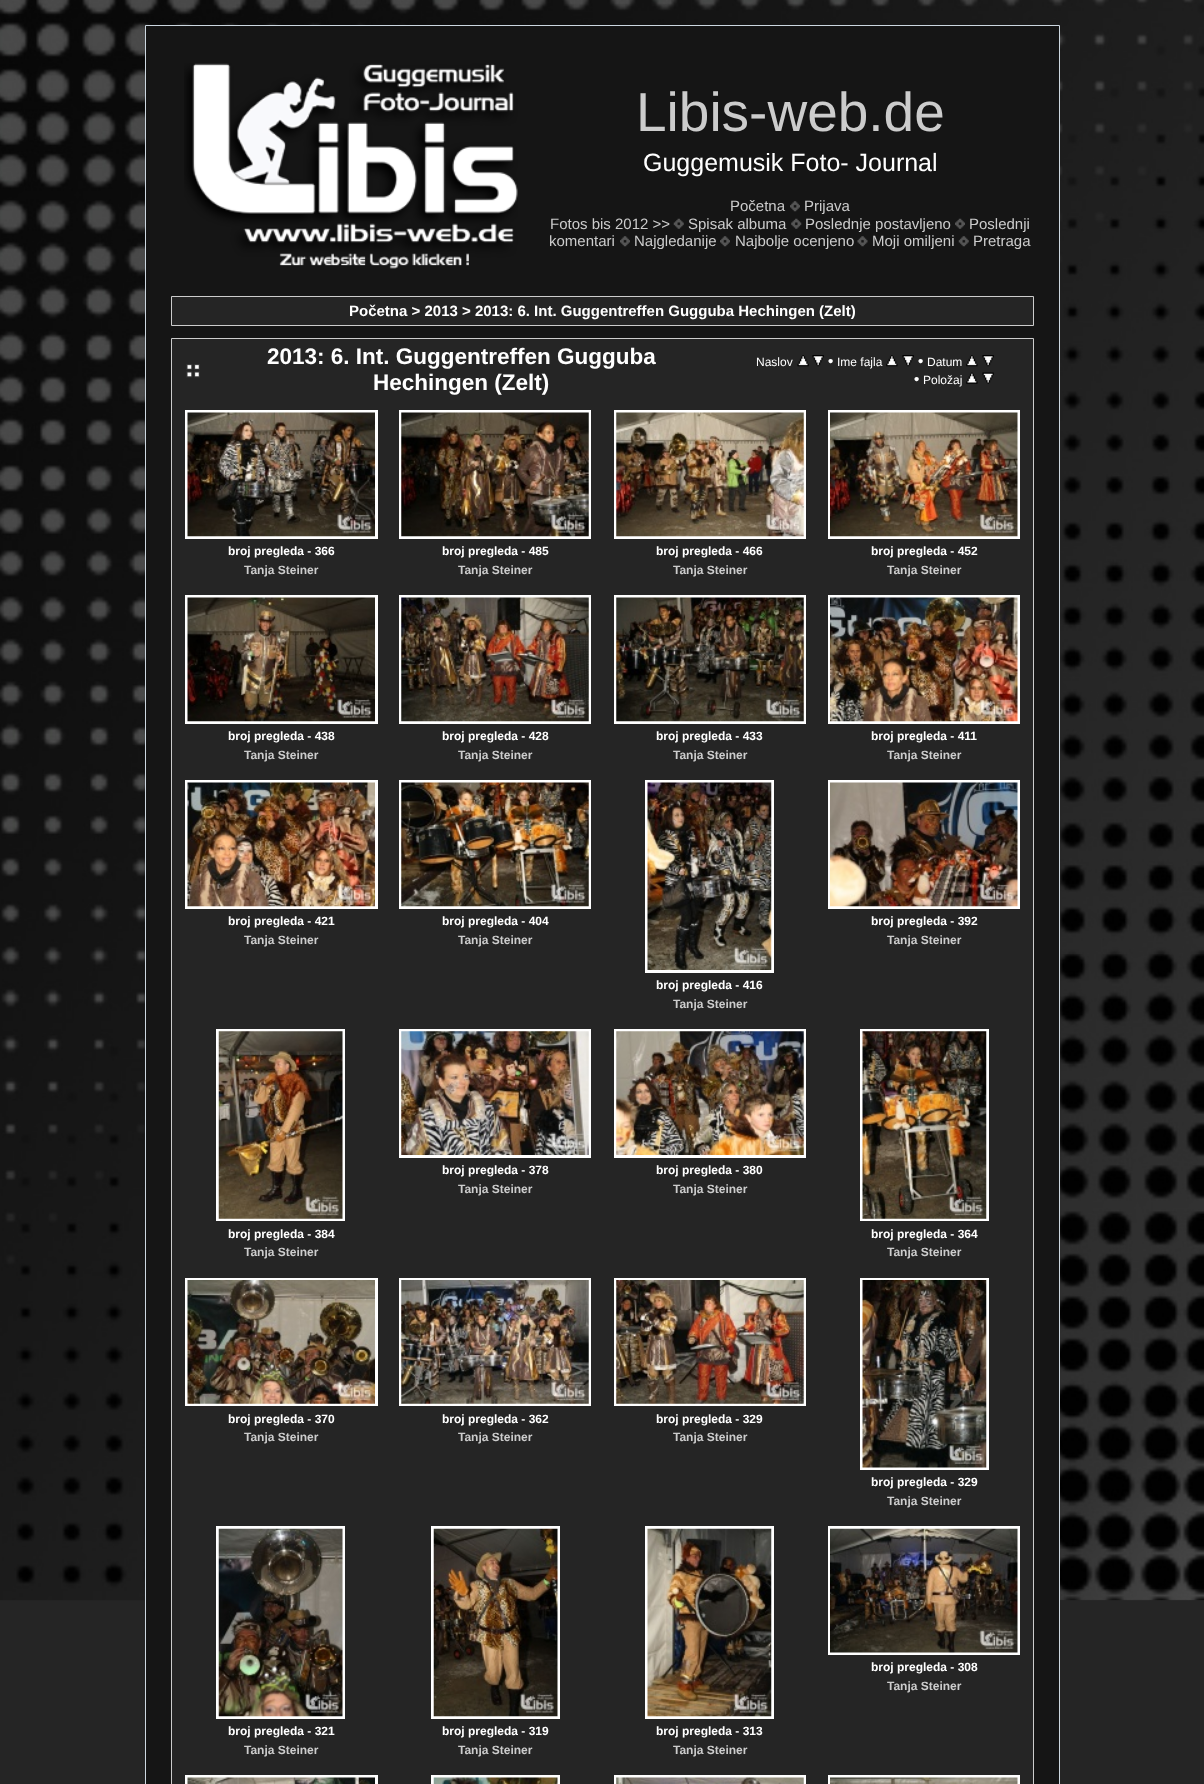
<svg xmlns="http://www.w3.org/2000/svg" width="1204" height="1784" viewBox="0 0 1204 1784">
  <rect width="100%" height="100%" fill="#252525"/>
  <image x="0" y="0" width="1204" height="1601" href="img/1.png"/>
  <path d="M145.5 25.5h914v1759H145.5z" fill="#151515" stroke="#ccd7e0"/>
  <image x="184" y="63" width="334" height="206" href="img/2.png"/>
  <image x="790" y="201" width="10" height="11" href="img/3.png"/>
  <image x="673" y="218" width="11" height="11" href="img/4.png"/>
  <image x="791" y="218" width="11" height="11" href="img/5.png"/>
  <image x="955" y="218" width="10" height="11" href="img/6.png"/>
  <image x="620" y="236" width="10" height="11" href="img/3.png"/>
  <image x="720" y="236" width="10" height="11" href="img/7.png"/>
  <image x="857" y="236" width="11" height="11" href="img/8.png"/>
  <image x="958" y="236" width="11" height="11" href="img/9.png"/>
  <path d="M171.5 296.5h862v29H171.5z" fill="#252525" stroke="#ccc"/>
  <path d="M171.5 338.5h862v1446H171.5z" fill="#252525" stroke="#ccc"/>
  <image x="186" y="364" width="14" height="14" href="img/10.png"/>
  <image x="797" y="355" width="12" height="12" href="img/11.png"/>
  <image x="812" y="355" width="12" height="12" href="img/12.png"/>
  <image x="886" y="355" width="12" height="12" href="img/13.png"/>
  <image x="902" y="355" width="12" height="12" href="img/14.png"/>
  <image x="966" y="355" width="12" height="12" href="img/13.png"/>
  <image x="982" y="355" width="12" height="12" href="img/12.png"/>
  <image x="966" y="372" width="12" height="12" href="img/15.png"/>
  <image x="982" y="372" width="12" height="12" href="img/16.png"/>
  <path d="M186.5 411.5h190v126H186.5z" fill="none" stroke="#fff" stroke-width="3"/>
  <image x="187" y="412" width="188" height="125" href="img/17.png"/>
  <path d="M400.5 411.5h189v126H400.5z" fill="none" stroke="#fff" stroke-width="3"/>
  <image x="401" y="412" width="188" height="125" href="img/18.png"/>
  <path d="M615.5 411.5h189v126H615.5z" fill="none" stroke="#fff" stroke-width="3"/>
  <image x="616" y="412" width="188" height="125" href="img/19.png"/>
  <path d="M829.5 411.5h189v126H829.5z" fill="none" stroke="#fff" stroke-width="3"/>
  <image x="830" y="412" width="188" height="125" href="img/20.png"/>
  <path d="M186.5 596.5h190v126H186.5z" fill="none" stroke="#fff" stroke-width="3"/>
  <image x="187" y="597" width="188" height="125" href="img/21.png"/>
  <path d="M400.5 596.5h189v126H400.5z" fill="none" stroke="#fff" stroke-width="3"/>
  <image x="401" y="597" width="188" height="125" href="img/22.png"/>
  <path d="M615.5 596.5h189v126H615.5z" fill="none" stroke="#fff" stroke-width="3"/>
  <image x="616" y="597" width="188" height="125" href="img/23.png"/>
  <path d="M829.5 596.5h189v126H829.5z" fill="none" stroke="#fff" stroke-width="3"/>
  <image x="830" y="597" width="188" height="125" href="img/24.png"/>
  <path d="M186.5 781.5h190v126H186.5z" fill="none" stroke="#fff" stroke-width="3"/>
  <image x="187" y="782" width="188" height="125" href="img/25.png"/>
  <path d="M400.5 781.5h189v126H400.5z" fill="none" stroke="#fff" stroke-width="3"/>
  <image x="401" y="782" width="188" height="125" href="img/26.png"/>
  <path d="M829.5 781.5h189v126H829.5z" fill="none" stroke="#fff" stroke-width="3"/>
  <image x="830" y="782" width="188" height="125" href="img/27.png"/>
  <path d="M646.5 781.5h126v190H646.5z" fill="none" stroke="#fff" stroke-width="3"/>
  <image x="647" y="782" width="125" height="188" href="img/28.png"/>
  <path d="M400.5 1030.5h189v126H400.5z" fill="none" stroke="#fff" stroke-width="3"/>
  <image x="401" y="1031" width="188" height="124" href="img/29.png"/>
  <path d="M615.5 1030.5h189v126H615.5z" fill="none" stroke="#fff" stroke-width="3"/>
  <image x="616" y="1031" width="188" height="124" href="img/30.png"/>
  <path d="M217.5 1030.5h126v189H217.5z" fill="none" stroke="#fff" stroke-width="3"/>
  <image x="218" y="1031" width="125" height="188" href="img/31.png"/>
  <path d="M861.5 1030.5h126v189H861.5z" fill="none" stroke="#fff" stroke-width="3"/>
  <image x="862" y="1031" width="125" height="188" href="img/32.png"/>
  <path d="M186.5 1279.5h190v125H186.5z" fill="none" stroke="#fff" stroke-width="3"/>
  <image x="187" y="1280" width="188" height="124" href="img/33.png"/>
  <path d="M400.5 1279.5h189v125H400.5z" fill="none" stroke="#fff" stroke-width="3"/>
  <image x="401" y="1280" width="188" height="124" href="img/34.png"/>
  <path d="M615.5 1279.5h189v125H615.5z" fill="none" stroke="#fff" stroke-width="3"/>
  <image x="616" y="1280" width="188" height="124" href="img/35.png"/>
  <path d="M861.5 1279.5h126v189H861.5z" fill="none" stroke="#fff" stroke-width="3"/>
  <image x="862" y="1280" width="125" height="188" href="img/36.png"/>
  <path d="M829.5 1527.5h189v126H829.5z" fill="none" stroke="#fff" stroke-width="3"/>
  <image x="830" y="1528" width="188" height="125" href="img/37.png"/>
  <path d="M217.5 1527.5h126v190H217.5z" fill="none" stroke="#fff" stroke-width="3"/>
  <image x="218" y="1528" width="125" height="189" href="img/38.png"/>
  <path d="M432.5 1527.5h126v190H432.5z" fill="none" stroke="#fff" stroke-width="3"/>
  <image x="433" y="1528" width="125" height="189" href="img/39.png"/>
  <path d="M646.5 1527.5h126v190H646.5z" fill="none" stroke="#fff" stroke-width="3"/>
  <image x="647" y="1528" width="125" height="189" href="img/40.png"/>
  <path d="M186.5 1776.5h190v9H186.5z" fill="none" stroke="#fff" stroke-width="3"/>
  <image x="187" y="1777" width="188" height="7" href="img/41.png"/>
  <path d="M432.5 1776.5h126v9H432.5z" fill="none" stroke="#fff" stroke-width="3"/>
  <image x="433" y="1777" width="125" height="7" href="img/42.png"/>
  <path d="M615.5 1776.5h189v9H615.5z" fill="none" stroke="#fff" stroke-width="3"/>
  <image x="616" y="1777" width="188" height="7" href="img/43.png"/>
  <path d="M829.5 1776.5h189v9H829.5z" fill="none" stroke="#fff" stroke-width="3"/>
  <image x="830" y="1777" width="188" height="7" href="img/44.png"/>
  <text x="636" y="131" font-family="Liberation Sans" font-size="55" fill="#ccc">Libis-web.de</text>
  <text x="643" y="171" font-family="Liberation Sans" font-size="25" fill="#fff">Guggemusik Foto- Journal</text>
  <g font-family="Liberation Sans" font-size="15" fill="#ccc">
    <text x="730" y="211">Početna</text>
    <text x="804" y="211">Prijava</text>
    <text x="550" y="229">Fotos bis 2012 &gt;&gt;</text>
    <text x="688" y="229">Spisak albuma</text>
    <text x="805" y="229">Poslednje postavljeno</text>
    <text x="969" y="229">Poslednji</text>
    <text x="549" y="246">komentari</text>
    <text x="634" y="246">Najgledanije</text>
    <text x="735" y="246">Najbolje ocenjeno</text>
    <text x="872" y="246">Moji omiljeni</text>
    <text x="973" y="246">Pretraga</text>
  </g>
  <text x="349" y="316" font-family="Liberation Sans" font-size="15" font-weight="bold" fill="#fff">Početna &gt; 2013 &gt; 2013: 6. Int. Guggentreffen Gugguba Hechingen (Zelt)</text>
  <g font-family="Liberation Sans" font-size="22.5" font-weight="bold" fill="#fff">
    <text x="267" y="364">2013: 6. Int. Guggentreffen Gugguba</text>
    <text x="373" y="390">Hechingen (Zelt)</text>
  </g>
  <text x="756" y="366" font-family="Liberation Sans" font-size="12" fill="#fff">Naslov</text>
  <text x="828" y="366" font-family="Liberation Sans" font-size="15" font-weight="bold" fill="#fff">•</text>
  <text x="837" y="366" font-family="Liberation Sans" font-size="12" fill="#fff">Ime fajla</text>
  <text x="918" y="366" font-family="Liberation Sans" font-size="15" font-weight="bold" fill="#fff">•</text>
  <text x="927" y="366" font-family="Liberation Sans" font-size="12" fill="#fff">Datum</text>
  <text x="914" y="384" font-family="Liberation Sans" font-size="15" font-weight="bold" fill="#fff">•</text>
  <text x="923" y="384" font-family="Liberation Sans" font-size="12" fill="#fff">Položaj</text>
  <text x="228" y="555" font-family="Liberation Sans" font-size="12" font-weight="bold" fill="#fff">broj pregleda - 366</text>
  <text x="244" y="574" font-family="Liberation Sans" font-size="12" font-weight="bold" fill="#ccc">Tanja Steiner</text>
  <text x="442" y="555" font-family="Liberation Sans" font-size="12" font-weight="bold" fill="#fff">broj pregleda - 485</text>
  <text x="458" y="574" font-family="Liberation Sans" font-size="12" font-weight="bold" fill="#ccc">Tanja Steiner</text>
  <text x="656" y="555" font-family="Liberation Sans" font-size="12" font-weight="bold" fill="#fff">broj pregleda - 466</text>
  <text x="673" y="574" font-family="Liberation Sans" font-size="12" font-weight="bold" fill="#ccc">Tanja Steiner</text>
  <text x="871" y="555" font-family="Liberation Sans" font-size="12" font-weight="bold" fill="#fff">broj pregleda - 452</text>
  <text x="887" y="574" font-family="Liberation Sans" font-size="12" font-weight="bold" fill="#ccc">Tanja Steiner</text>
  <text x="228" y="740" font-family="Liberation Sans" font-size="12" font-weight="bold" fill="#fff">broj pregleda - 438</text>
  <text x="244" y="759" font-family="Liberation Sans" font-size="12" font-weight="bold" fill="#ccc">Tanja Steiner</text>
  <text x="442" y="740" font-family="Liberation Sans" font-size="12" font-weight="bold" fill="#fff">broj pregleda - 428</text>
  <text x="458" y="759" font-family="Liberation Sans" font-size="12" font-weight="bold" fill="#ccc">Tanja Steiner</text>
  <text x="656" y="740" font-family="Liberation Sans" font-size="12" font-weight="bold" fill="#fff">broj pregleda - 433</text>
  <text x="673" y="759" font-family="Liberation Sans" font-size="12" font-weight="bold" fill="#ccc">Tanja Steiner</text>
  <text x="871" y="740" font-family="Liberation Sans" font-size="12" font-weight="bold" fill="#fff">broj pregleda - 411</text>
  <text x="887" y="759" font-family="Liberation Sans" font-size="12" font-weight="bold" fill="#ccc">Tanja Steiner</text>
  <text x="228" y="925" font-family="Liberation Sans" font-size="12" font-weight="bold" fill="#fff">broj pregleda - 421</text>
  <text x="244" y="944" font-family="Liberation Sans" font-size="12" font-weight="bold" fill="#ccc">Tanja Steiner</text>
  <text x="442" y="925" font-family="Liberation Sans" font-size="12" font-weight="bold" fill="#fff">broj pregleda - 404</text>
  <text x="458" y="944" font-family="Liberation Sans" font-size="12" font-weight="bold" fill="#ccc">Tanja Steiner</text>
  <text x="871" y="925" font-family="Liberation Sans" font-size="12" font-weight="bold" fill="#fff">broj pregleda - 392</text>
  <text x="887" y="944" font-family="Liberation Sans" font-size="12" font-weight="bold" fill="#ccc">Tanja Steiner</text>
  <text x="656" y="989" font-family="Liberation Sans" font-size="12" font-weight="bold" fill="#fff">broj pregleda - 416</text>
  <text x="673" y="1008" font-family="Liberation Sans" font-size="12" font-weight="bold" fill="#ccc">Tanja Steiner</text>
  <text x="442" y="1174" font-family="Liberation Sans" font-size="12" font-weight="bold" fill="#fff">broj pregleda - 378</text>
  <text x="458" y="1193" font-family="Liberation Sans" font-size="12" font-weight="bold" fill="#ccc">Tanja Steiner</text>
  <text x="656" y="1174" font-family="Liberation Sans" font-size="12" font-weight="bold" fill="#fff">broj pregleda - 380</text>
  <text x="673" y="1193" font-family="Liberation Sans" font-size="12" font-weight="bold" fill="#ccc">Tanja Steiner</text>
  <text x="228" y="1238" font-family="Liberation Sans" font-size="12" font-weight="bold" fill="#fff">broj pregleda - 384</text>
  <text x="244" y="1256" font-family="Liberation Sans" font-size="12" font-weight="bold" fill="#ccc">Tanja Steiner</text>
  <text x="871" y="1238" font-family="Liberation Sans" font-size="12" font-weight="bold" fill="#fff">broj pregleda - 364</text>
  <text x="887" y="1256" font-family="Liberation Sans" font-size="12" font-weight="bold" fill="#ccc">Tanja Steiner</text>
  <text x="228" y="1423" font-family="Liberation Sans" font-size="12" font-weight="bold" fill="#fff">broj pregleda - 370</text>
  <text x="244" y="1441" font-family="Liberation Sans" font-size="12" font-weight="bold" fill="#ccc">Tanja Steiner</text>
  <text x="442" y="1423" font-family="Liberation Sans" font-size="12" font-weight="bold" fill="#fff">broj pregleda - 362</text>
  <text x="458" y="1441" font-family="Liberation Sans" font-size="12" font-weight="bold" fill="#ccc">Tanja Steiner</text>
  <text x="656" y="1423" font-family="Liberation Sans" font-size="12" font-weight="bold" fill="#fff">broj pregleda - 329</text>
  <text x="673" y="1441" font-family="Liberation Sans" font-size="12" font-weight="bold" fill="#ccc">Tanja Steiner</text>
  <text x="871" y="1486" font-family="Liberation Sans" font-size="12" font-weight="bold" fill="#fff">broj pregleda - 329</text>
  <text x="887" y="1505" font-family="Liberation Sans" font-size="12" font-weight="bold" fill="#ccc">Tanja Steiner</text>
  <text x="871" y="1671" font-family="Liberation Sans" font-size="12" font-weight="bold" fill="#fff">broj pregleda - 308</text>
  <text x="887" y="1690" font-family="Liberation Sans" font-size="12" font-weight="bold" fill="#ccc">Tanja Steiner</text>
  <text x="228" y="1735" font-family="Liberation Sans" font-size="12" font-weight="bold" fill="#fff">broj pregleda - 321</text>
  <text x="244" y="1754" font-family="Liberation Sans" font-size="12" font-weight="bold" fill="#ccc">Tanja Steiner</text>
  <text x="442" y="1735" font-family="Liberation Sans" font-size="12" font-weight="bold" fill="#fff">broj pregleda - 319</text>
  <text x="458" y="1754" font-family="Liberation Sans" font-size="12" font-weight="bold" fill="#ccc">Tanja Steiner</text>
  <text x="656" y="1735" font-family="Liberation Sans" font-size="12" font-weight="bold" fill="#fff">broj pregleda - 313</text>
  <text x="673" y="1754" font-family="Liberation Sans" font-size="12" font-weight="bold" fill="#ccc">Tanja Steiner</text>
</svg>
